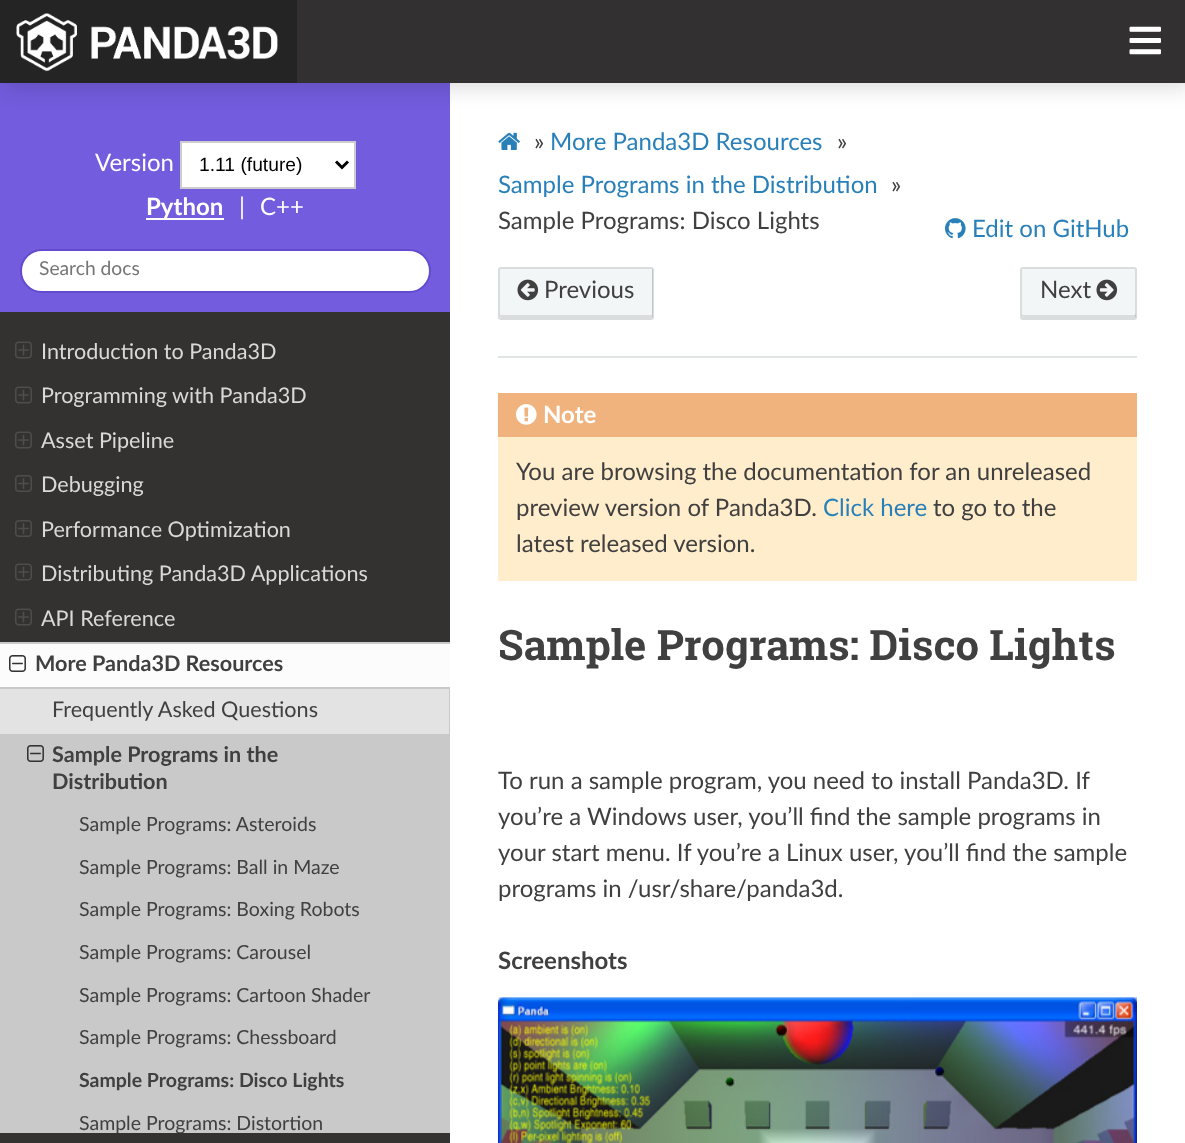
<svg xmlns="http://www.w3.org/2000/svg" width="1185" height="1143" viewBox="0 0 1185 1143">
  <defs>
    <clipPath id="clip1"><path d="M0 330h450v803H0z"/></clipPath>
  </defs>
  <rect width="100%" height="100%" fill="#fcfcfc"/>
  <path d="M0 83h450v229H0z" fill="#735cdd"/>
  <path d="M456 83H1179C1182.5 83 1185 85.5 1185 89V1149H450V89C450 85.5 452.5 83 456 83Z" fill="#fff"/>
  <path d="M5 5h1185v82H5z" fill="#00000026" filter="blur(11px)"/>
  <path d="M297 0h888v83H297z" fill="#323031"/>
  <path d="M0 0h297v83H0z" fill="#252424"/>
  <image x="16" y="13" width="262" height="59" href="img/1.png"/>
  <image x="1129" y="26" width="32" height="29" href="img/2.png"/>
  <path d="M0 312h450v831H0z" fill="#343131"/>
  <path d="M181 142h174v46H181z" fill="#fff" stroke="#ccc" stroke-width="2"/>
  <path d="M336 161.5L342 167.5L348 161.5" fill="none" stroke="#000" stroke-width="3"/>
  <path d="M146 218h78v2H146z" fill="#fcfcfc"/>
  <rect x="21" y="250" width="409" height="42" rx="21" fill="#fff" stroke="#624bcc" stroke-width="2"/>
  <image x="15" y="341" width="17" height="18" href="img/3.png"/>
  <image x="15" y="386" width="17" height="18" href="img/3.png"/>
  <image x="15" y="431" width="17" height="18" href="img/3.png"/>
  <image x="15" y="475" width="17" height="17" href="img/4.png"/>
  <image x="15" y="520" width="17" height="17" href="img/4.png"/>
  <image x="15" y="563" width="17" height="18" href="img/3.png"/>
  <image x="15" y="608" width="17" height="18" href="img/3.png"/>
  <path d="M0 689h449v45H0z" fill="#e3e3e3"/>
  <path d="M0 644h450v43H0z" fill="#fcfcfc"/>
  <path d="M0 642h450v2H0z" fill="#c9c9c9"/>
  <path d="M0 687h450v2H0z" fill="#c9c9c9"/>
  <image x="9" y="655" width="17" height="17" href="img/5.png"/>
  <path d="M449 689h1v45H449z" fill="#c9c9c9"/>
  <path d="M0 734h450v399H0z" fill="#c9c9c9"/>
  <image x="27" y="745" width="17" height="17" href="img/6.png"/>
  <image x="498" y="132" width="22" height="18" href="img/7.png"/>
  <image x="945" y="218" width="21" height="21" href="img/8.png"/>
  <rect x="498" y="267" width="156" height="53" rx="3" fill="#f3f6f6"/>
  <path d="M500 314V316C500 317 501 318 502 318H652C652 318 653 317 653 316V270C653 270 653 269 652 269V314C652 314 652 315 651 315H501C500 315 500 314 500 314Z" fill="#dbdddd"/>
  <rect x="499" y="268" width="154" height="51" rx="2" fill="none" stroke="#0000001a" stroke-width="2"/>
  <image x="517" y="279" width="22" height="22" href="img/9.png"/>
  <rect x="1020" y="267" width="117" height="53" rx="3" fill="#f3f6f6"/>
  <path d="M1022 314V316C1022 317 1023 318 1024 318H1134C1135 318 1136 317 1136 316V314L1134 315H1060H1023Z" fill="#dbdddd"/>
  <rect x="1021" y="268" width="115" height="51" rx="2" fill="none" stroke="#0000001a" stroke-width="2"/>
  <image x="1096" y="279" width="22" height="22" href="img/10.png"/>
  <path d="M498 356h639v2H498z" fill="#e1e4e5"/>
  <path d="M498 437h639v144H498z" fill="#ffedcc"/>
  <path d="M498 393h639v44H498z" fill="#f0b37e"/>
  <image x="516" y="404" width="21" height="21" href="img/11.png"/>
  <image x="498" y="997" width="639" height="146" href="img/12.png"/>
  <text x="95" y="171" font-family="Lato" font-size="24" fill="#fff">Version</text>
  <text x="199" y="171" font-family="Liberation Sans" font-size="19.25" fill="#000">1.11 (future)</text>
  <text x="146" y="215" font-family="Lato" font-size="24" font-weight="bold" fill="#fff">Python</text>
  <g font-family="Lato" font-size="24" fill="#fff">
    <text x="239" y="215">|</text>
    <text x="260" y="215">C++</text>
  </g>
  <text x="39" y="275" font-family="Lato" font-size="19.25" fill="#757575">Search docs</text>
  <g font-family="Lato" font-size="21.6" fill="#d9d9d9">
    <text x="41" y="359">Introduction to Panda3D</text>
    <text x="41" y="403">Programming with Panda3D</text>
    <text x="41" y="448">Asset Pipeline</text>
    <text x="41" y="492">Debugging</text>
    <text x="41" y="537">Performance Optimization</text>
    <text x="41" y="581">Distributing Panda3D Applications</text>
    <text x="41" y="626">API Reference</text>
  </g>
  <text x="35" y="671" font-family="Lato" font-size="21.6" font-weight="bold" fill="#404040">More Panda3D Resources</text>
  <text x="52" y="717" font-family="Lato" font-size="21.6" fill="#404040">Frequently Asked Questions</text>
  <g font-family="Lato" font-size="21.6" font-weight="bold" fill="#404040">
    <text x="52" y="762">Sample Programs in the</text>
    <text x="52" y="789">Distribution</text>
  </g>
  <g font-family="Lato" font-size="19.5" fill="#404040">
    <text x="79" y="831">Sample Programs: Asteroids</text>
    <text x="79" y="874">Sample Programs: Ball in Maze</text>
    <text x="79" y="916">Sample Programs: Boxing Robots</text>
    <text x="79" y="959">Sample Programs: Carousel</text>
    <text x="79" y="1002">Sample Programs: Cartoon Shader</text>
    <text x="79" y="1044">Sample Programs: Chessboard</text>
  </g>
  <text x="79" y="1087" font-family="Lato" font-size="19.5" font-weight="bold" fill="#404040">Sample Programs: Disco Lights</text>
  <g clip-path="url(#clip1)">
    <text x="79" y="1130" font-family="Lato" font-size="19.5" fill="#404040">Sample Programs: Distortion</text>
  </g>
  <text x="534" y="150" font-family="Lato" font-size="24" fill="#404040">»</text>
  <text x="550" y="150" font-family="Lato" font-size="24" fill="#2980b9">More Panda3D Resources</text>
  <text x="837" y="150" font-family="Lato" font-size="24" fill="#404040">»</text>
  <text x="498" y="193" font-family="Lato" font-size="24" fill="#2980b9">Sample Programs in the Distribution</text>
  <g font-family="Lato" font-size="24" fill="#404040">
    <text x="891" y="193">»</text>
    <text x="498" y="229">Sample Programs: Disco Lights</text>
  </g>
  <text x="972" y="237" font-family="Lato" font-size="24" fill="#2980b9">Edit on GitHub</text>
  <g font-family="Lato" font-size="24" fill="#404040">
    <text x="544" y="298">Previous</text>
    <text x="1040" y="298">Next</text>
  </g>
  <text x="543" y="423" font-family="Lato" font-size="24" font-weight="bold" fill="#fff">Note</text>
  <g font-family="Lato" font-size="24" fill="#404040">
    <text x="516" y="480">You are browsing the documentation for an unreleased</text>
    <text x="516" y="516">preview version of Panda3D.</text>
  </g>
  <text x="823" y="516" font-family="Lato" font-size="24" fill="#2980b9">Click here</text>
  <g font-family="Lato" font-size="24" fill="#404040">
    <text x="933" y="516">to go to the</text>
    <text x="516" y="552">latest released version.</text>
  </g>
  <text x="498" y="660" font-family="Roboto Slab" font-size="42" font-weight="bold" fill="#404040">Sample Programs: Disco Lights</text>
  <g font-family="Lato" font-size="24" fill="#404040">
    <text x="498" y="789">To run a sample program, you need to install Panda3D. If</text>
    <text x="498" y="825">you’re a Windows user, you’ll find the sample programs in</text>
    <text x="498" y="861">your start menu. If you’re a Linux user, you’ll find the sample</text>
    <text x="498" y="897">programs in /usr/share/panda3d.</text>
  </g>
  <text x="498" y="969" font-family="Lato" font-size="24" font-weight="bold" fill="#404040">Screenshots</text>
</svg>
